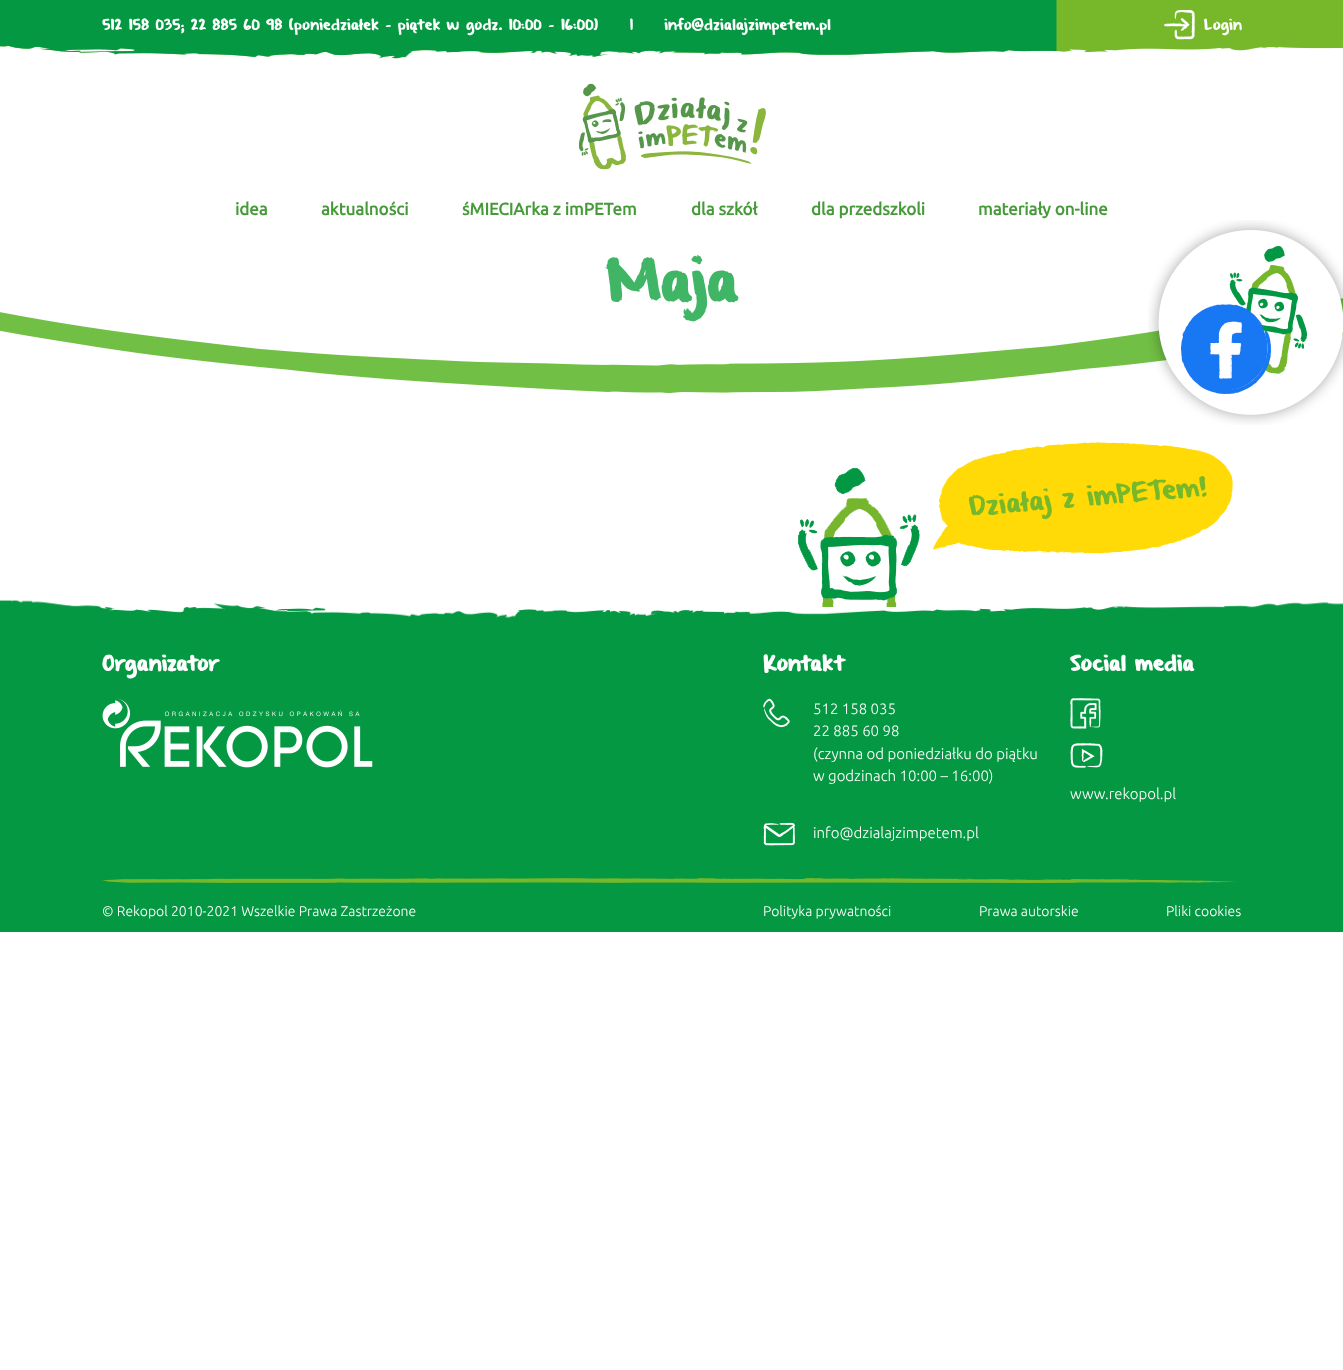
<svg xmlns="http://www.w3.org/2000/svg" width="1343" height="1370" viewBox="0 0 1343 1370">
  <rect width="100%" height="100%" fill="#fff"/>
  <image x="0" y="0" width="1343" height="59" href="img/1.png"/>
  <image x="1164" y="9" width="31" height="31" href="img/2.png"/>
  <image x="579" y="83" width="187" height="87" href="img/3.png"/>
  <image x="0" y="298" width="1343" height="95" href="img/4.png"/>
  <image x="1148" y="220" width="195" height="205" href="img/5.png"/>
  <image x="0" y="600" width="1343" height="332" href="img/6.png"/>
  <image x="798" y="442" width="435" height="165" href="img/7.png"/>
  <image x="102" y="698" width="271" height="70" href="img/8.png"/>
  <image x="763" y="698" width="27" height="30" href="img/9.png"/>
  <image x="763" y="822" width="32" height="24" href="img/10.png"/>
  <image x="1070" y="698" width="31" height="31" href="img/11.png"/>
  <image x="1070" y="743" width="33" height="25" href="img/12.png"/>
  <image x="102" y="878" width="1134" height="5" href="img/13.png"/>
  <g font-family="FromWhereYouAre" font-size="12" fill="#fff">
    <text x="102" y="30" xml:space="preserve">512 158 035; 22 885 60 98 (poniedziałek – piątek w godz. 10:00 – 16:00)     |</text>
    <text x="664" y="30">info@dzialajzimpetem.pl</text>
    <text x="1204" y="30">Login</text>
  </g>
  <g font-family="Ubuntu" font-size="17" font-weight="bold" fill="#469a39">
    <text x="235" y="215">idea</text>
    <text x="321" y="215">aktualności</text>
    <text x="462" y="215">śMIECIArka z imPETem</text>
    <text x="691" y="215">dla szkół</text>
    <text x="811" y="215">dla przedszkoli</text>
    <text x="978" y="215">materiały on-line</text>
  </g>
  <text x="605" y="302" font-family="FromWhereYouAre" font-size="46" font-weight="bold" fill="#40b565">Maja</text>
  <g font-family="FromWhereYouAre" font-size="17" font-weight="bold" fill="#fff">
    <text x="102" y="671">Organizator</text>
    <text x="763" y="671">Kontakt</text>
  </g>
  <g font-family="Ubuntu" font-size="15" font-weight="300" fill="#fff">
    <text x="813" y="714">512 158 035</text>
    <text x="813" y="736">22 885 60 98</text>
    <text x="813" y="759">(czynna od poniedziałku do piątku</text>
    <text x="813" y="781">w godzinach 10:00 – 16:00)</text>
    <text x="813" y="838">info@dzialajzimpetem.pl</text>
  </g>
  <text x="1070" y="671" font-family="FromWhereYouAre" font-size="17" font-weight="bold" fill="#fff">Social media</text>
  <text x="1070" y="799" font-family="Ubuntu" font-size="15" font-weight="300" fill="#fff">www.rekopol.pl</text>
  <g font-family="Ubuntu" font-size="14" font-weight="300" fill="#fff">
    <text x="102" y="916">© Rekopol 2010-2021 Wszelkie Prawa Zastrzeżone</text>
    <text x="763" y="916">Polityka prywatności</text>
    <text x="979" y="916">Prawa autorskie</text>
    <text x="1166" y="916">Pliki cookies</text>
  </g>
</svg>
